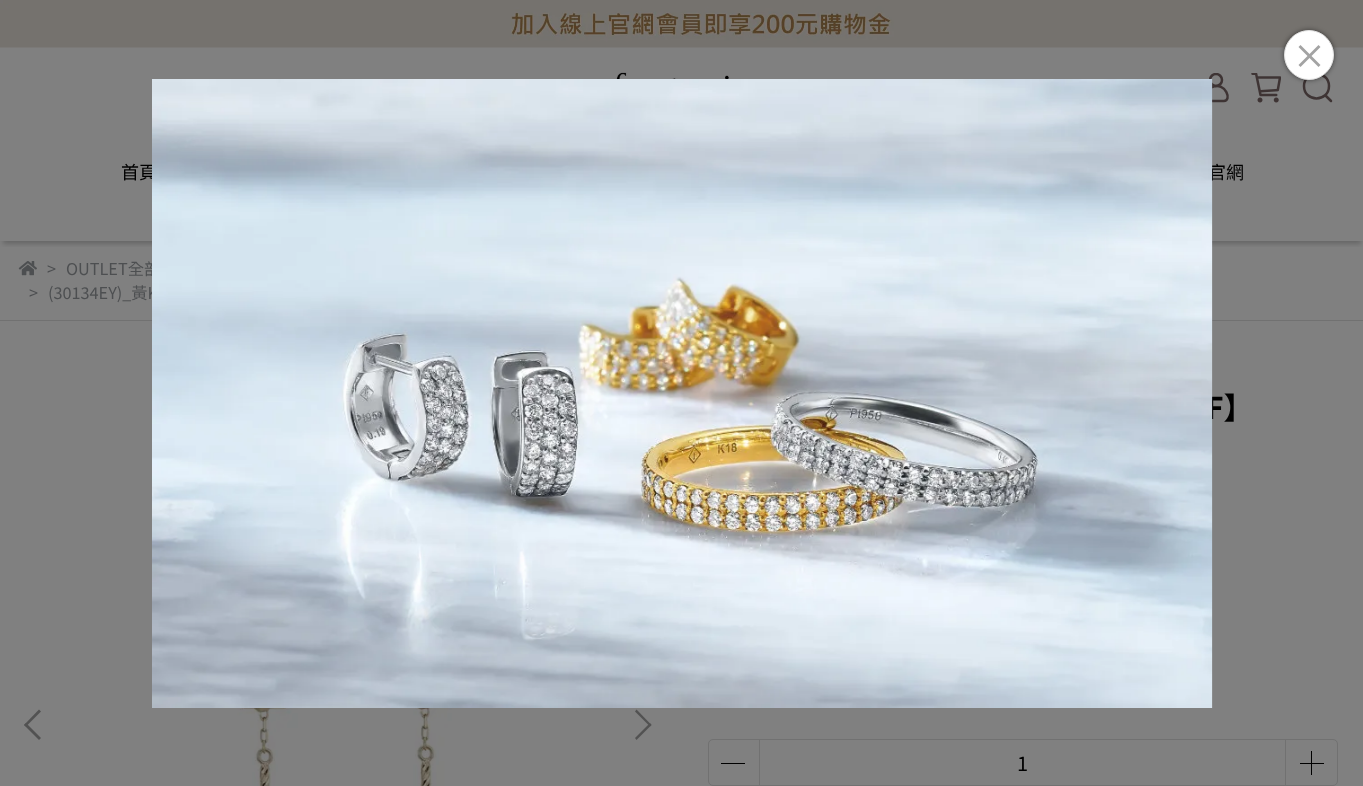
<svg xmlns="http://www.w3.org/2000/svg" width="1363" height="786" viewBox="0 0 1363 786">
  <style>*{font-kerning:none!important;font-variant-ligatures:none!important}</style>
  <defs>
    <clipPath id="clip1"><path d="M1201 73h30v30H1201z"/></clipPath>
    <clipPath id="clip2"><path d="M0 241h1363v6H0z"/></clipPath>
  </defs>
  <rect width="100%" height="100%" fill="#808080"/>
  <image x="0" y="0" width="1363" height="48" href="img/2.png"/>
  <image x="1251" y="73" width="30" height="30" href="img/4.png"/>
  <path d="M1329 86C1329 102.5 1304 102.5 1304 86C1304 70 1329 70 1329 86ZM1326 96L1331 101" fill="none" stroke="#3e3434" stroke-width="2.5" stroke-linecap="round" stroke-linejoin="round"/>
  <rect x="1284" y="30" width="50" height="50" rx="25" fill="#00000080" filter="blur(2.5px)"/>
  <circle cx="1309" cy="55" r="24.5" fill="#fff" stroke="#e2e2e2"/>
  <path d="M1300.5 45L1320.5 65L1318.5 67L1298.5 47Z" fill="#a3a3a3"/>
  <path d="M1298.5 65L1318.5 45L1320.5 47L1300.5 67Z" fill="#a3a3a3"/>
  <image x="612" y="72" width="141" height="7" href="img/3.png"/>
  <g clip-path="url(#clip1)">
    <circle cx="1216" cy="80" r="6" fill="none" stroke="#3e3434" stroke-width="2.5"/>
  </g>
  <path d="M1223.5 101H1214C1208.5 101 1203.5 101.5 1205 94.5C1206 91 1208.5 88.5 1212 87C1226 81.5 1232.5 101.5 1223.5 101Z" fill="none" stroke="#3e3434" stroke-width="2.5"/>
  <g clip-path="url(#clip2)">
    <path d="M3 156h1358v88H3z" fill="#00000033" filter="blur(2.5px)"/>
  </g>
  <path d="M0 320h1363v1H0z" fill="#717171"/>
  <image x="18" y="261" width="19" height="15" href="img/5.png"/>
  <path d="M39 740L24 725L26 723L41 738Z" fill="#525252"/>
  <path d="M26 726.5L24 725L39 709.5L41 711.5Z" fill="#525252"/>
  <image x="237" y="708" width="215" height="78" href="img/6.png"/>
  <path d="M636.5 709.5L651.5 725L650 726.5L635 711.5Z" fill="#525252"/>
  <path d="M650 723L651.5 725L636.5 740L635 738Z" fill="#525252"/>
  <path d="M713 739.5H759.5V785.5H713C710.5 785.5 708.5 783.5 708.5 781V744C708.5 741.5 710.5 739.5 713 739.5Z" fill="none" stroke="#717171"/>
  <path d="M721 763h24v1H721z" fill="#000"/>
  <path d="M759.5 739.5h526v46H759.5z" fill="none" stroke="#717171"/>
  <path d="M1285.5 739.5H1333C1335.5 739.5 1337.5 741.5 1337.5 744V781C1337.5 783.5 1335.5 785.5 1333 785.5H1285.5Z" fill="none" stroke="#717171"/>
  <path d="M1300 763h24v1H1300z" fill="#000"/>
  <path d="M1311 751h1v24H1311z" fill="#000"/>
  <g font-family="Noto Sans TC" font-size="18" fill="#000">
    <text x="121" y="179">首頁</text>
    <text x="1208" y="179">官網</text>
  </g>
  <g font-family="Noto Sans TC" font-size="16.25" fill="#4d4f51">
    <text x="47" y="275">&gt;</text>
    <text x="66" y="275">OUTLET全部</text>
    <text x="29" y="299">&gt;</text>
    <text x="48" y="299">(30134EY)_黃K</text>
  </g>
  <text x="1206" y="419" font-family="Noto Sans TC" font-size="30" font-weight="bold" fill="#000">F】</text>
  <image x="152" y="79" width="1061" height="629" href="img/1.png"/>
  <text x="1017" y="771" font-family="Noto Sans TC" font-size="20" fill="#000">1</text>
</svg>
